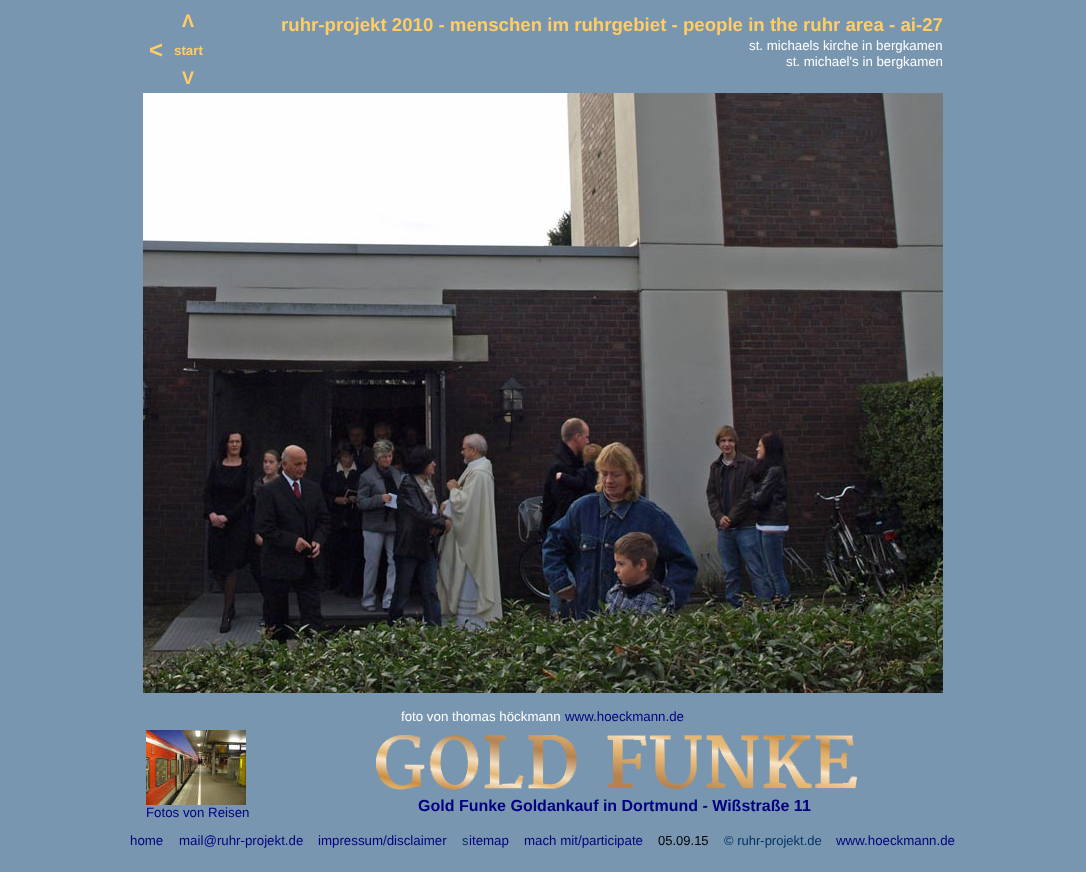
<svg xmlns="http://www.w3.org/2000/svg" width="1086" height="872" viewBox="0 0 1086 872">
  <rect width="100%" height="100%" fill="#7896af"/>
  <image x="143" y="93" width="800" height="600" href="img/1.png"/>
  <image x="146" y="730" width="100" height="75" href="img/2.png"/>
  <image x="376" y="735" width="481" height="55" href="img/3.png"/>
  <text x="149" y="58" font-family="Liberation Sans" font-size="24" font-weight="bold" fill="#fc6">&lt;</text>
  <text x="174" y="55" font-family="Liberation Sans" font-size="13.3" font-weight="bold" fill="#fc6">start</text>
  <text x="182" y="27" font-family="Liberation Sans" font-size="18" font-weight="bold" fill="#fc6">Λ</text>
  <text x="281" y="31" font-family="Liberation Sans" font-size="18.65" font-weight="bold" fill="#fc6">ruhr-projekt 2010 - menschen im ruhrgebiet - people in the ruhr area - ai-27</text>
  <g font-family="Liberation Sans" font-size="13.3" fill="#fff">
    <text x="749" y="50">st. michaels kirche in bergkamen</text>
    <text x="786" y="66">st. michael's in bergkamen</text>
  </g>
  <text x="182" y="84" font-family="Liberation Sans" font-size="18" font-weight="bold" fill="#fc6">V</text>
  <text x="401" y="721" font-family="Liberation Sans" font-size="13.3" fill="#fff">foto von thomas höckmann</text>
  <g font-family="Liberation Sans" font-size="13.3" fill="#000080">
    <text x="565" y="721">www.hoeckmann.de</text>
    <text x="146" y="817">Fotos von Reisen</text>
  </g>
  <text x="418" y="811" font-family="Liberation Sans" font-size="16" font-weight="bold" fill="#000080">Gold Funke Goldankauf in Dortmund - Wißstraße 11</text>
  <g font-family="Liberation Sans" font-size="13.3" fill="#000080">
    <text x="130" y="845">home</text>
    <text x="179" y="845">mail@ruhr-projekt.de</text>
    <text x="318" y="845">impressum/disclaimer</text>
  </g>
  <text x="462" y="845" font-family="Liberation Sans" font-size="13" fill="#036">s</text>
  <g font-family="Liberation Sans" font-size="13.3" fill="#000080">
    <text x="469" y="845">itemap</text>
    <text x="524" y="845">mach mit/participate</text>
  </g>
  <text x="658" y="845" font-family="Liberation Sans" font-size="13" fill="#000">05.09.15</text>
  <text x="724" y="845" font-family="Liberation Sans" font-size="13" fill="#036">© ruhr-projekt.de</text>
  <text x="836" y="845" font-family="Liberation Sans" font-size="13.3" fill="#000080">www.hoeckmann.de</text>
</svg>
